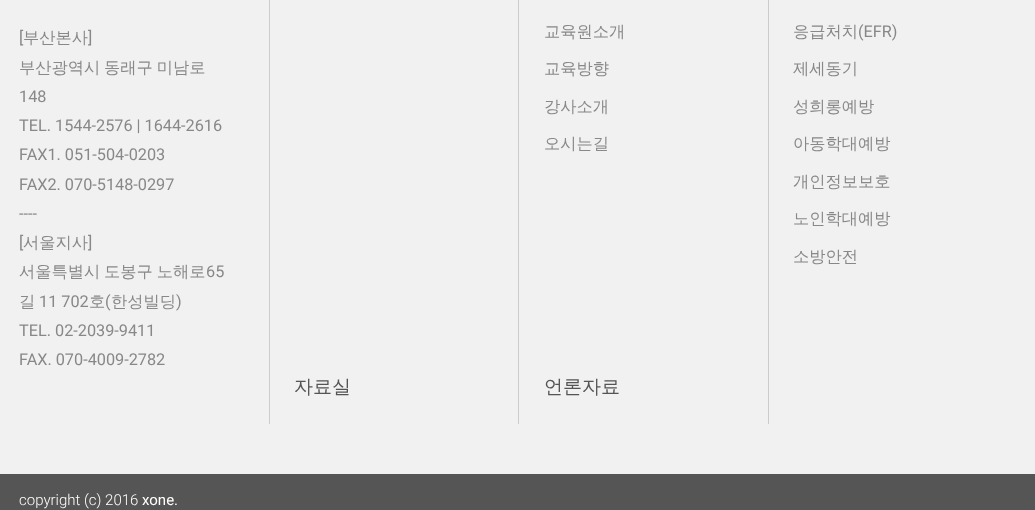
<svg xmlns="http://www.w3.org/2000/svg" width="1035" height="510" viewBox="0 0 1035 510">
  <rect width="100%" height="100%" fill="#f1f1f1"/>
  <path d="M518 0h1v424H518z" fill="#ccc"/>
  <path d="M768 0h1v424H768z" fill="#ccc"/>
  <path d="M269 0h1v424H269z" fill="#ccc"/>
  <path d="M0 474h1035v36H0z" fill="#555"/>
  <text x="19" y="43" font-family="Roboto" font-size="16.25" fill="#888">[</text>
  <text x="23" y="43" font-family="WenQuanYi Zen Hei" font-size="16.25" font-weight="500" fill="#888">부산본사</text>
  <text x="88" y="43" font-family="Roboto" font-size="16.25" fill="#888">]</text>
  <text x="19" y="73" word-spacing="-1" font-family="WenQuanYi Zen Hei" font-size="16.25" font-weight="500" fill="#888">부산광역시 동래구 미남로</text>
  <g font-family="Roboto" font-size="16.25" fill="#888">
    <text x="19" y="102">148</text>
    <text x="19" y="131">TEL. 1544-2576 | 1644-2616</text>
    <text x="19" y="160">FAX1. 051-504-0203</text>
    <text x="19" y="190">FAX2. 070-5148-0297</text>
    <text x="19" y="219">----</text>
    <text x="19" y="248">[</text>
  </g>
  <text x="23" y="248" font-family="WenQuanYi Zen Hei" font-size="16.25" font-weight="500" fill="#888">서울지사</text>
  <text x="88" y="248" font-family="Roboto" font-size="16.25" fill="#888">]</text>
  <text x="19" y="277" word-spacing="-1" font-family="WenQuanYi Zen Hei" font-size="16.25" font-weight="500" fill="#888">서울특별시 도봉구 노해로</text>
  <text x="206" y="277" font-family="Roboto" font-size="16.25" fill="#888">65</text>
  <text x="19" y="307" font-family="WenQuanYi Zen Hei" font-size="16.25" font-weight="500" fill="#888">길</text>
  <text x="39" y="307" font-family="Roboto" font-size="16.25" fill="#888">11 702</text>
  <text x="89" y="307" font-family="WenQuanYi Zen Hei" font-size="16.25" font-weight="500" fill="#888">호</text>
  <text x="105" y="307" font-family="Roboto" font-size="16.25" fill="#888">(</text>
  <text x="111" y="307" font-family="WenQuanYi Zen Hei" font-size="16.25" font-weight="500" fill="#888">한성빌딩</text>
  <g font-family="Roboto" font-size="16.25" fill="#888">
    <text x="176" y="307">)</text>
    <text x="19" y="336">TEL. 02-2039-9411</text>
    <text x="19" y="365">FAX. 070-4009-2782</text>
  </g>
  <g font-family="WenQuanYi Zen Hei" font-size="16.25" font-weight="500" fill="#888">
    <text x="544" y="37">교육원소개</text>
    <text x="544" y="74">교육방향</text>
    <text x="544" y="112">강사소개</text>
    <text x="544" y="149">오시는길</text>
  </g>
  <text x="544" y="393" font-family="WenQuanYi Zen Hei" font-size="19" font-weight="500" fill="#555">언론자료</text>
  <text x="793" y="37" font-family="WenQuanYi Zen Hei" font-size="16.25" font-weight="500" fill="#888">응급처치</text>
  <text x="858" y="37" font-family="Roboto" font-size="16.25" fill="#888">(EFR)</text>
  <g font-family="WenQuanYi Zen Hei" font-size="16.25" font-weight="500" fill="#888">
    <text x="793" y="74">제세동기</text>
    <text x="793" y="112">성희롱예방</text>
    <text x="793" y="149">아동학대예방</text>
    <text x="793" y="187">개인정보보호</text>
    <text x="793" y="224">노인학대예방</text>
    <text x="793" y="262">소방안전</text>
  </g>
  <text x="294" y="393" font-family="WenQuanYi Zen Hei" font-size="19" font-weight="500" fill="#555">자료실</text>
  <text x="19" y="505" font-family="Roboto" font-size="15" font-weight="300" fill="#fff">copyright (c) 2016</text>
  <text x="142" y="505" font-family="Roboto" font-size="15" fill="#fff">xone.</text>
</svg>
